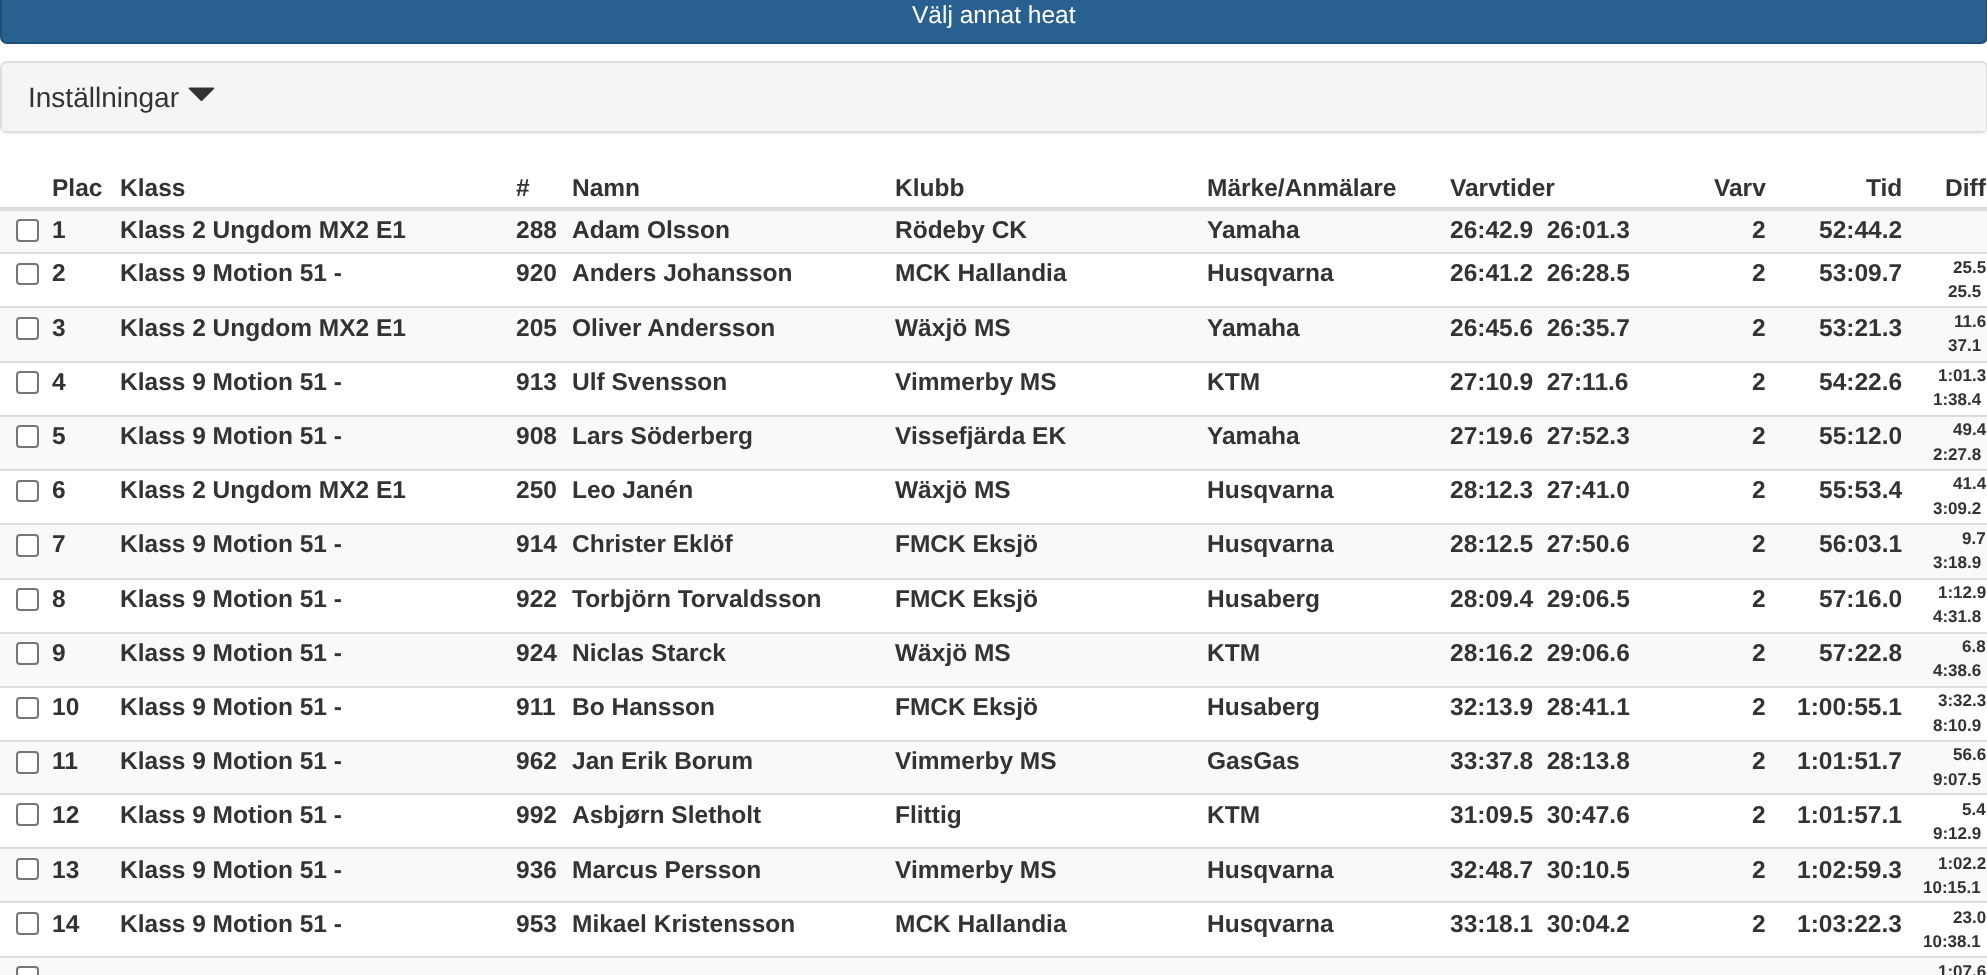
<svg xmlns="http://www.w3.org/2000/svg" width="1987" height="975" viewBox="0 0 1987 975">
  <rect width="100%" height="100%" fill="#fff"/>
  <rect x="1" y="-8" width="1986" height="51" rx="6" fill="#286090" stroke="#204d74" stroke-width="2"/>
  <rect y="63" width="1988" height="72" rx="7" fill="#0000000d" filter="blur(1px)"/>
  <rect x="1" y="62" width="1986" height="70" rx="6" fill="none" stroke="#ddd" stroke-width="2"/>
  <path d="M7 63H1981C1984 63 1986 65 1986 68V131H2V68C2 65 4 63 7 63Z" fill="#f5f5f5"/>
  <image x="188" y="87" width="27" height="14" href="img/1.png"/>
  <path d="M0 207h1987v4H0z" fill="#ddd"/>
  <path d="M0 211h1987v41H0z" fill="#f9f9f9"/>
  <rect x="17" y="220" width="21" height="21" rx="3" fill="#fff" stroke="#767676" stroke-width="2"/>
  <rect x="17" y="264" width="21" height="20" rx="3" fill="none" stroke="#767676" stroke-width="2"/>
  <path d="M0 252h1987v2H0z" fill="#ddd"/>
  <path d="M0 308h1987v53H0z" fill="#f9f9f9"/>
  <rect x="17" y="318" width="21" height="21" rx="3" fill="#fff" stroke="#767676" stroke-width="2"/>
  <path d="M0 306h1987v2H0z" fill="#ddd"/>
  <rect x="17" y="372" width="21" height="21" rx="3" fill="none" stroke="#767676" stroke-width="2"/>
  <path d="M0 361h1987v2H0z" fill="#ddd"/>
  <path d="M0 417h1987v52H0z" fill="#f9f9f9"/>
  <rect x="17" y="426" width="21" height="21" rx="3" fill="#fff" stroke="#767676" stroke-width="2"/>
  <path d="M0 415h1987v2H0z" fill="#ddd"/>
  <rect x="17" y="481" width="21" height="20" rx="3" fill="none" stroke="#767676" stroke-width="2"/>
  <path d="M0 469h1987v2H0z" fill="#ddd"/>
  <path d="M0 525h1987v53H0z" fill="#f9f9f9"/>
  <rect x="17" y="535" width="21" height="21" rx="3" fill="#fff" stroke="#767676" stroke-width="2"/>
  <path d="M0 523h1987v2H0z" fill="#ddd"/>
  <rect x="17" y="589" width="21" height="21" rx="3" fill="none" stroke="#767676" stroke-width="2"/>
  <path d="M0 578h1987v2H0z" fill="#ddd"/>
  <path d="M0 634h1987v52H0z" fill="#f9f9f9"/>
  <rect x="17" y="643" width="21" height="21" rx="3" fill="#fff" stroke="#767676" stroke-width="2"/>
  <path d="M0 632h1987v2H0z" fill="#ddd"/>
  <rect x="17" y="698" width="21" height="20" rx="3" fill="none" stroke="#767676" stroke-width="2"/>
  <path d="M0 686h1987v2H0z" fill="#ddd"/>
  <path d="M0 742h1987v51H0z" fill="#f9f9f9"/>
  <rect x="17" y="752" width="21" height="21" rx="3" fill="#fff" stroke="#767676" stroke-width="2"/>
  <path d="M0 740h1987v2H0z" fill="#ddd"/>
  <rect x="17" y="804" width="21" height="21" rx="3" fill="none" stroke="#767676" stroke-width="2"/>
  <path d="M0 793h1987v2H0z" fill="#ddd"/>
  <path d="M0 849h1987v52H0z" fill="#f9f9f9"/>
  <rect x="17" y="859" width="21" height="20" rx="3" fill="#fff" stroke="#767676" stroke-width="2"/>
  <path d="M0 847h1987v2H0z" fill="#ddd"/>
  <rect x="17" y="913" width="21" height="21" rx="3" fill="none" stroke="#767676" stroke-width="2"/>
  <path d="M0 901h1987v2H0z" fill="#ddd"/>
  <path d="M0 958h1987v17H0z" fill="#f9f9f9"/>
  <rect x="17" y="967" width="21" height="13" rx="3" fill="#fff" stroke="#767676" stroke-width="2"/>
  <path d="M0 956h1987v2H0z" fill="#ddd"/>
  <text x="912" y="23" font-family="Liberation Sans" font-size="24.5" fill="#fff">Välj annat heat</text>
  <text x="28" y="107" font-family="Liberation Sans" font-size="28" fill="#333">Inställningar</text>
  <g font-family="Liberation Sans" font-size="24.5" font-weight="bold" fill="#333">
    <text x="52" y="196">Plac</text>
    <text x="120" y="196">Klass</text>
    <text x="516" y="196">#</text>
    <text x="572" y="196">Namn</text>
    <text x="895" y="196">Klubb</text>
    <text x="1207" y="196">Märke/Anmälare</text>
    <text x="1450" y="196">Varvtider</text>
    <text x="1714" y="196">Varv</text>
    <text x="1866" y="196">Tid</text>
    <text x="1945" y="196">Diff</text>
    <text x="52" y="238">1</text>
    <text x="120" y="238">Klass 2 Ungdom MX2 E1</text>
    <text x="516" y="238">288</text>
    <text x="572" y="238">Adam Olsson</text>
    <text x="895" y="238">Rödeby CK</text>
    <text x="1207" y="238">Yamaha</text>
    <text x="1450" y="238" xml:space="preserve">26:42.9  26:01.3</text>
    <text x="1752" y="238">2</text>
    <text x="1819" y="238">52:44.2</text>
    <text x="52" y="281">2</text>
    <text x="120" y="281">Klass 9 Motion 51 -</text>
    <text x="516" y="281">920</text>
    <text x="572" y="281">Anders Johansson</text>
    <text x="895" y="281">MCK Hallandia</text>
    <text x="1207" y="281">Husqvarna</text>
    <text x="1450" y="281" xml:space="preserve">26:41.2  26:28.5</text>
    <text x="1752" y="281">2</text>
    <text x="1819" y="281">53:09.7</text>
  </g>
  <g font-family="Liberation Sans" font-size="17" font-weight="bold" fill="#333">
    <text x="1953" y="273">25.5</text>
    <text x="1948" y="297">25.5</text>
  </g>
  <g font-family="Liberation Sans" font-size="24.5" font-weight="bold" fill="#333">
    <text x="52" y="336">3</text>
    <text x="120" y="336">Klass 2 Ungdom MX2 E1</text>
    <text x="516" y="336">205</text>
    <text x="572" y="336">Oliver Andersson</text>
    <text x="895" y="336">Wäxjö MS</text>
    <text x="1207" y="336">Yamaha</text>
    <text x="1450" y="336" xml:space="preserve">26:45.6  26:35.7</text>
    <text x="1752" y="336">2</text>
    <text x="1819" y="336">53:21.3</text>
  </g>
  <g font-family="Liberation Sans" font-size="17" font-weight="bold" fill="#333">
    <text x="1954" y="327">11.6</text>
    <text x="1948" y="351">37.1</text>
  </g>
  <g font-family="Liberation Sans" font-size="24.5" font-weight="bold" fill="#333">
    <text x="52" y="390">4</text>
    <text x="120" y="390">Klass 9 Motion 51 -</text>
    <text x="516" y="390">913</text>
    <text x="572" y="390">Ulf Svensson</text>
    <text x="895" y="390">Vimmerby MS</text>
    <text x="1207" y="390">KTM</text>
    <text x="1450" y="390" xml:space="preserve">27:10.9  27:11.6</text>
    <text x="1752" y="390">2</text>
    <text x="1819" y="390">54:22.6</text>
  </g>
  <g font-family="Liberation Sans" font-size="17" font-weight="bold" fill="#333">
    <text x="1938" y="381">1:01.3</text>
    <text x="1933" y="405">1:38.4</text>
  </g>
  <g font-family="Liberation Sans" font-size="24.5" font-weight="bold" fill="#333">
    <text x="52" y="444">5</text>
    <text x="120" y="444">Klass 9 Motion 51 -</text>
    <text x="516" y="444">908</text>
    <text x="572" y="444">Lars Söderberg</text>
    <text x="895" y="444">Vissefjärda EK</text>
    <text x="1207" y="444">Yamaha</text>
    <text x="1450" y="444" xml:space="preserve">27:19.6  27:52.3</text>
    <text x="1752" y="444">2</text>
    <text x="1819" y="444">55:12.0</text>
  </g>
  <g font-family="Liberation Sans" font-size="17" font-weight="bold" fill="#333">
    <text x="1953" y="435">49.4</text>
    <text x="1933" y="460">2:27.8</text>
  </g>
  <g font-family="Liberation Sans" font-size="24.5" font-weight="bold" fill="#333">
    <text x="52" y="498">6</text>
    <text x="120" y="498">Klass 2 Ungdom MX2 E1</text>
    <text x="516" y="498">250</text>
    <text x="572" y="498">Leo Janén</text>
    <text x="895" y="498">Wäxjö MS</text>
    <text x="1207" y="498">Husqvarna</text>
    <text x="1450" y="498" xml:space="preserve">28:12.3  27:41.0</text>
    <text x="1752" y="498">2</text>
    <text x="1819" y="498">55:53.4</text>
  </g>
  <g font-family="Liberation Sans" font-size="17" font-weight="bold" fill="#333">
    <text x="1953" y="489">41.4</text>
    <text x="1933" y="514">3:09.2</text>
  </g>
  <g font-family="Liberation Sans" font-size="24.5" font-weight="bold" fill="#333">
    <text x="52" y="552">7</text>
    <text x="120" y="552">Klass 9 Motion 51 -</text>
    <text x="516" y="552">914</text>
    <text x="572" y="552">Christer Eklöf</text>
    <text x="895" y="552">FMCK Eksjö</text>
    <text x="1207" y="552">Husqvarna</text>
    <text x="1450" y="552" xml:space="preserve">28:12.5  27:50.6</text>
    <text x="1752" y="552">2</text>
    <text x="1819" y="552">56:03.1</text>
  </g>
  <g font-family="Liberation Sans" font-size="17" font-weight="bold" fill="#333">
    <text x="1962" y="544">9.7</text>
    <text x="1933" y="568">3:18.9</text>
  </g>
  <g font-family="Liberation Sans" font-size="24.5" font-weight="bold" fill="#333">
    <text x="52" y="607">8</text>
    <text x="120" y="607">Klass 9 Motion 51 -</text>
    <text x="516" y="607">922</text>
    <text x="572" y="607">Torbjörn Torvaldsson</text>
    <text x="895" y="607">FMCK Eksjö</text>
    <text x="1207" y="607">Husaberg</text>
    <text x="1450" y="607" xml:space="preserve">28:09.4  29:06.5</text>
    <text x="1752" y="607">2</text>
    <text x="1819" y="607">57:16.0</text>
  </g>
  <g font-family="Liberation Sans" font-size="17" font-weight="bold" fill="#333">
    <text x="1938" y="598">1:12.9</text>
    <text x="1933" y="622">4:31.8</text>
  </g>
  <g font-family="Liberation Sans" font-size="24.5" font-weight="bold" fill="#333">
    <text x="52" y="661">9</text>
    <text x="120" y="661">Klass 9 Motion 51 -</text>
    <text x="516" y="661">924</text>
    <text x="572" y="661">Niclas Starck</text>
    <text x="895" y="661">Wäxjö MS</text>
    <text x="1207" y="661">KTM</text>
    <text x="1450" y="661" xml:space="preserve">28:16.2  29:06.6</text>
    <text x="1752" y="661">2</text>
    <text x="1819" y="661">57:22.8</text>
  </g>
  <g font-family="Liberation Sans" font-size="17" font-weight="bold" fill="#333">
    <text x="1962" y="652">6.8</text>
    <text x="1933" y="676">4:38.6</text>
  </g>
  <g font-family="Liberation Sans" font-size="24.5" font-weight="bold" fill="#333">
    <text x="52" y="715">10</text>
    <text x="120" y="715">Klass 9 Motion 51 -</text>
    <text x="516" y="715">911</text>
    <text x="572" y="715">Bo Hansson</text>
    <text x="895" y="715">FMCK Eksjö</text>
    <text x="1207" y="715">Husaberg</text>
    <text x="1450" y="715" xml:space="preserve">32:13.9  28:41.1</text>
    <text x="1752" y="715">2</text>
    <text x="1797" y="715">1:00:55.1</text>
  </g>
  <g font-family="Liberation Sans" font-size="17" font-weight="bold" fill="#333">
    <text x="1938" y="706">3:32.3</text>
    <text x="1933" y="731">8:10.9</text>
  </g>
  <g font-family="Liberation Sans" font-size="24.5" font-weight="bold" fill="#333">
    <text x="52" y="769">11</text>
    <text x="120" y="769">Klass 9 Motion 51 -</text>
    <text x="516" y="769">962</text>
    <text x="572" y="769">Jan Erik Borum</text>
    <text x="895" y="769">Vimmerby MS</text>
    <text x="1207" y="769">GasGas</text>
    <text x="1450" y="769" xml:space="preserve">33:37.8  28:13.8</text>
    <text x="1752" y="769">2</text>
    <text x="1797" y="769">1:01:51.7</text>
  </g>
  <g font-family="Liberation Sans" font-size="17" font-weight="bold" fill="#333">
    <text x="1953" y="760">56.6</text>
    <text x="1933" y="785">9:07.5</text>
  </g>
  <g font-family="Liberation Sans" font-size="24.5" font-weight="bold" fill="#333">
    <text x="52" y="823">12</text>
    <text x="120" y="823">Klass 9 Motion 51 -</text>
    <text x="516" y="823">992</text>
    <text x="572" y="823">Asbjørn Sletholt</text>
    <text x="895" y="823">Flittig</text>
    <text x="1207" y="823">KTM</text>
    <text x="1450" y="823" xml:space="preserve">31:09.5  30:47.6</text>
    <text x="1752" y="823">2</text>
    <text x="1797" y="823">1:01:57.1</text>
  </g>
  <g font-family="Liberation Sans" font-size="17" font-weight="bold" fill="#333">
    <text x="1962" y="815">5.4</text>
    <text x="1933" y="839">9:12.9</text>
  </g>
  <g font-family="Liberation Sans" font-size="24.5" font-weight="bold" fill="#333">
    <text x="52" y="878">13</text>
    <text x="120" y="878">Klass 9 Motion 51 -</text>
    <text x="516" y="878">936</text>
    <text x="572" y="878">Marcus Persson</text>
    <text x="895" y="878">Vimmerby MS</text>
    <text x="1207" y="878">Husqvarna</text>
    <text x="1450" y="878" xml:space="preserve">32:48.7  30:10.5</text>
    <text x="1752" y="878">2</text>
    <text x="1797" y="878">1:02:59.3</text>
  </g>
  <g font-family="Liberation Sans" font-size="17" font-weight="bold" fill="#333">
    <text x="1938" y="869">1:02.2</text>
    <text x="1923" y="893">10:15.1</text>
  </g>
  <g font-family="Liberation Sans" font-size="24.5" font-weight="bold" fill="#333">
    <text x="52" y="932">14</text>
    <text x="120" y="932">Klass 9 Motion 51 -</text>
    <text x="516" y="932">953</text>
    <text x="572" y="932">Mikael Kristensson</text>
    <text x="895" y="932">MCK Hallandia</text>
    <text x="1207" y="932">Husqvarna</text>
    <text x="1450" y="932" xml:space="preserve">33:18.1  30:04.2</text>
    <text x="1752" y="932">2</text>
    <text x="1797" y="932">1:03:22.3</text>
  </g>
  <g font-family="Liberation Sans" font-size="17" font-weight="bold" fill="#333">
    <text x="1953" y="923">23.0</text>
    <text x="1923" y="947">10:38.1</text>
    <text x="1938" y="977">1:07.6</text>
  </g>
</svg>
